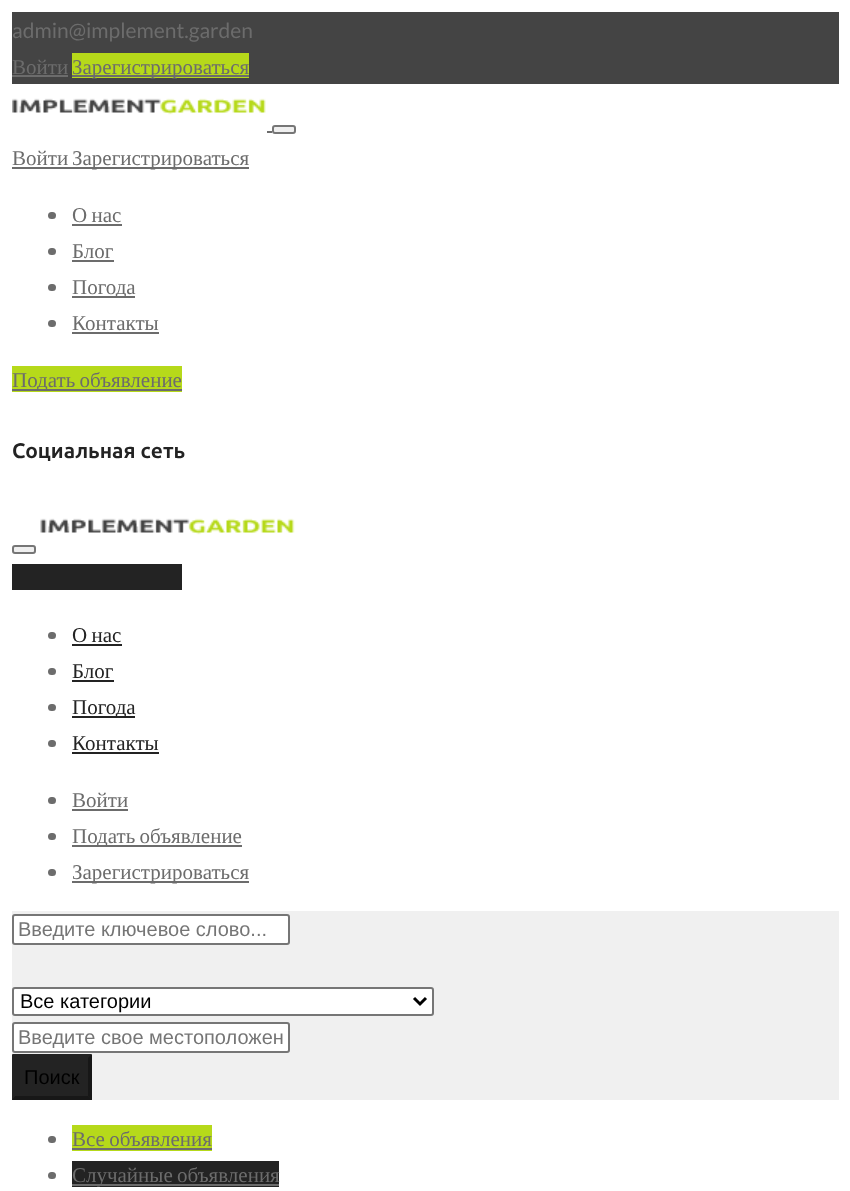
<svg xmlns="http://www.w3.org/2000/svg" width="850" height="1191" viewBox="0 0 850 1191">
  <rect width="100%" height="100%" fill="#fff"/>
  <path d="M12 12h827v72H12z" fill="#444"/>
  <path d="M12 75h56v2H12z" fill="#6c6c6c"/>
  <path d="M72 53h177v25H72z" fill="#b6d91a"/>
  <path d="M72 75h177v2H72z" fill="#6c6c6c"/>
  <image x="12" y="98" width="254" height="17" href="img/1.png"/>
  <path d="M267 131h5v2H267z" fill="#6c6c6c"/>
  <rect x="273" y="126" width="22" height="7" rx="2" fill="#efefef" stroke="#767676" stroke-width="2"/>
  <path d="M12 167h237v2H12z" fill="#6c6c6c"/>
  <rect x="48" y="212" width="8" height="7" rx="3.5" fill="#6c6c6c"/>
  <path d="M72 224h50v2H72z" fill="#6c6c6c"/>
  <rect x="48" y="248" width="8" height="7" rx="3.5" fill="#6c6c6c"/>
  <path d="M72 260h42v2H72z" fill="#6c6c6c"/>
  <rect x="48" y="284" width="8" height="7" rx="3.5" fill="#6c6c6c"/>
  <path d="M72 296h63v2H72z" fill="#6c6c6c"/>
  <rect x="48" y="320" width="8" height="7" rx="3.5" fill="#6c6c6c"/>
  <path d="M72 332h87v2H72z" fill="#6c6c6c"/>
  <path d="M12 366h170v26H12z" fill="#b6d91a"/>
  <path d="M12 389h170v2H12z" fill="#6c6c6c"/>
  <image x="40" y="518" width="255" height="17" href="img/2.png"/>
  <rect x="13" y="546" width="22" height="7" rx="2" fill="#efefef" stroke="#767676" stroke-width="2"/>
  <path d="M12 564h170v26H12z" fill="#232323"/>
  <rect x="48" y="632" width="8" height="7" rx="3.5" fill="#6c6c6c"/>
  <path d="M72 644h50v2H72z" fill="#232323"/>
  <rect x="48" y="668" width="8" height="7" rx="3.5" fill="#6c6c6c"/>
  <path d="M72 680h42v2H72z" fill="#232323"/>
  <rect x="48" y="704" width="8" height="7" rx="3.5" fill="#6c6c6c"/>
  <path d="M72 716h63v2H72z" fill="#232323"/>
  <rect x="48" y="740" width="8" height="7" rx="3.5" fill="#6c6c6c"/>
  <path d="M72 752h87v2H72z" fill="#232323"/>
  <rect x="48" y="797" width="8" height="7" rx="3.5" fill="#6c6c6c"/>
  <path d="M72 809h56v2H72z" fill="#6c6c6c"/>
  <rect x="48" y="833" width="8" height="7" rx="3.5" fill="#6c6c6c"/>
  <path d="M72 845h170v2H72z" fill="#6c6c6c"/>
  <rect x="48" y="869" width="8" height="7" rx="3.5" fill="#6c6c6c"/>
  <path d="M72 881h177v2H72z" fill="#6c6c6c"/>
  <path d="M12 911h827v189H12z" fill="#f0f0f0"/>
  <rect x="13" y="915" width="276" height="29" rx="2" fill="#fff" stroke="#767676" stroke-width="2"/>
  <rect x="13" y="988" width="420" height="27" rx="2" fill="#fff" stroke="#767676" stroke-width="2"/>
  <path d="M414 998L420 1004L426 998" fill="none" stroke="#000" stroke-width="3"/>
  <rect x="13" y="1023" width="276" height="29" rx="2" fill="#fff" stroke="#767676" stroke-width="2"/>
  <path d="M12 1055h80v45H12z" fill="#232323"/>
  <path d="M12 1054H92L88 1058H15Z" fill="#232323"/>
  <path d="M92 1054V1100L88 1096V1058Z" fill="#171717"/>
  <path d="M92 1100H12L15 1096H88Z" fill="#171717"/>
  <path d="M12 1100V1054L15 1058V1096Z" fill="#232323"/>
  <rect x="48" y="1136" width="8" height="7" rx="3.5" fill="#6c6c6c"/>
  <path d="M72 1125h140v26H72z" fill="#b6d91a"/>
  <path d="M72 1148h140v2H72z" fill="#6c6c6c"/>
  <rect x="48" y="1172" width="8" height="7" rx="3.5" fill="#6c6c6c"/>
  <path d="M72 1161h207v26H72z" fill="#232323"/>
  <path d="M72 1184h207v2H72z" fill="#6c6c6c"/>
  <text x="12" y="38" font-family="Lato" font-size="21" fill="#6c6c6c">admin@implement.garden</text>
  <g font-family="Liberation Serif" font-size="21" fill="#6c6c6c">
    <text x="12" y="74">Войти</text>
    <text x="72" y="74">Зарегистрироваться</text>
    <text x="12" y="165">Войти</text>
    <text x="72" y="165">Зарегистрироваться</text>
    <text x="72" y="222" word-spacing="-1">О нас</text>
    <text x="72" y="258">Блог</text>
    <text x="72" y="294">Погода</text>
    <text x="72" y="330">Контакты</text>
    <text x="12" y="387" word-spacing="-1">Подать объявление</text>
  </g>
  <text x="12" y="458" font-family="Ubuntu" font-size="21" font-weight="bold" fill="#232323">Социальная сеть</text>
  <g font-family="Liberation Serif" font-size="21" fill="#232323">
    <text x="72" y="642" word-spacing="-1">О нас</text>
    <text x="72" y="678">Блог</text>
    <text x="72" y="714">Погода</text>
    <text x="72" y="750">Контакты</text>
  </g>
  <g font-family="Liberation Serif" font-size="21" fill="#6c6c6c">
    <text x="72" y="807">Войти</text>
    <text x="72" y="843" word-spacing="-1">Подать объявление</text>
    <text x="72" y="879">Зарегистрироваться</text>
  </g>
  <text x="18" y="936" font-family="Liberation Sans" font-size="20" fill="#757575">Введите ключевое слово...</text>
  <text x="20" y="1008" font-family="Liberation Sans" font-size="20" fill="#000">Все категории</text>
  <text x="18" y="1044" font-family="Liberation Sans" font-size="20" fill="#757575">Введите свое местоположен</text>
  <text x="24" y="1084" font-family="Liberation Sans" font-size="20" fill="#000">Поиск</text>
  <g font-family="Liberation Serif" font-size="21" fill="#6c6c6c">
    <text x="72" y="1146" word-spacing="-1">Все объявления</text>
    <text x="72" y="1182" word-spacing="-1">Случайные объявления</text>
  </g>
</svg>
